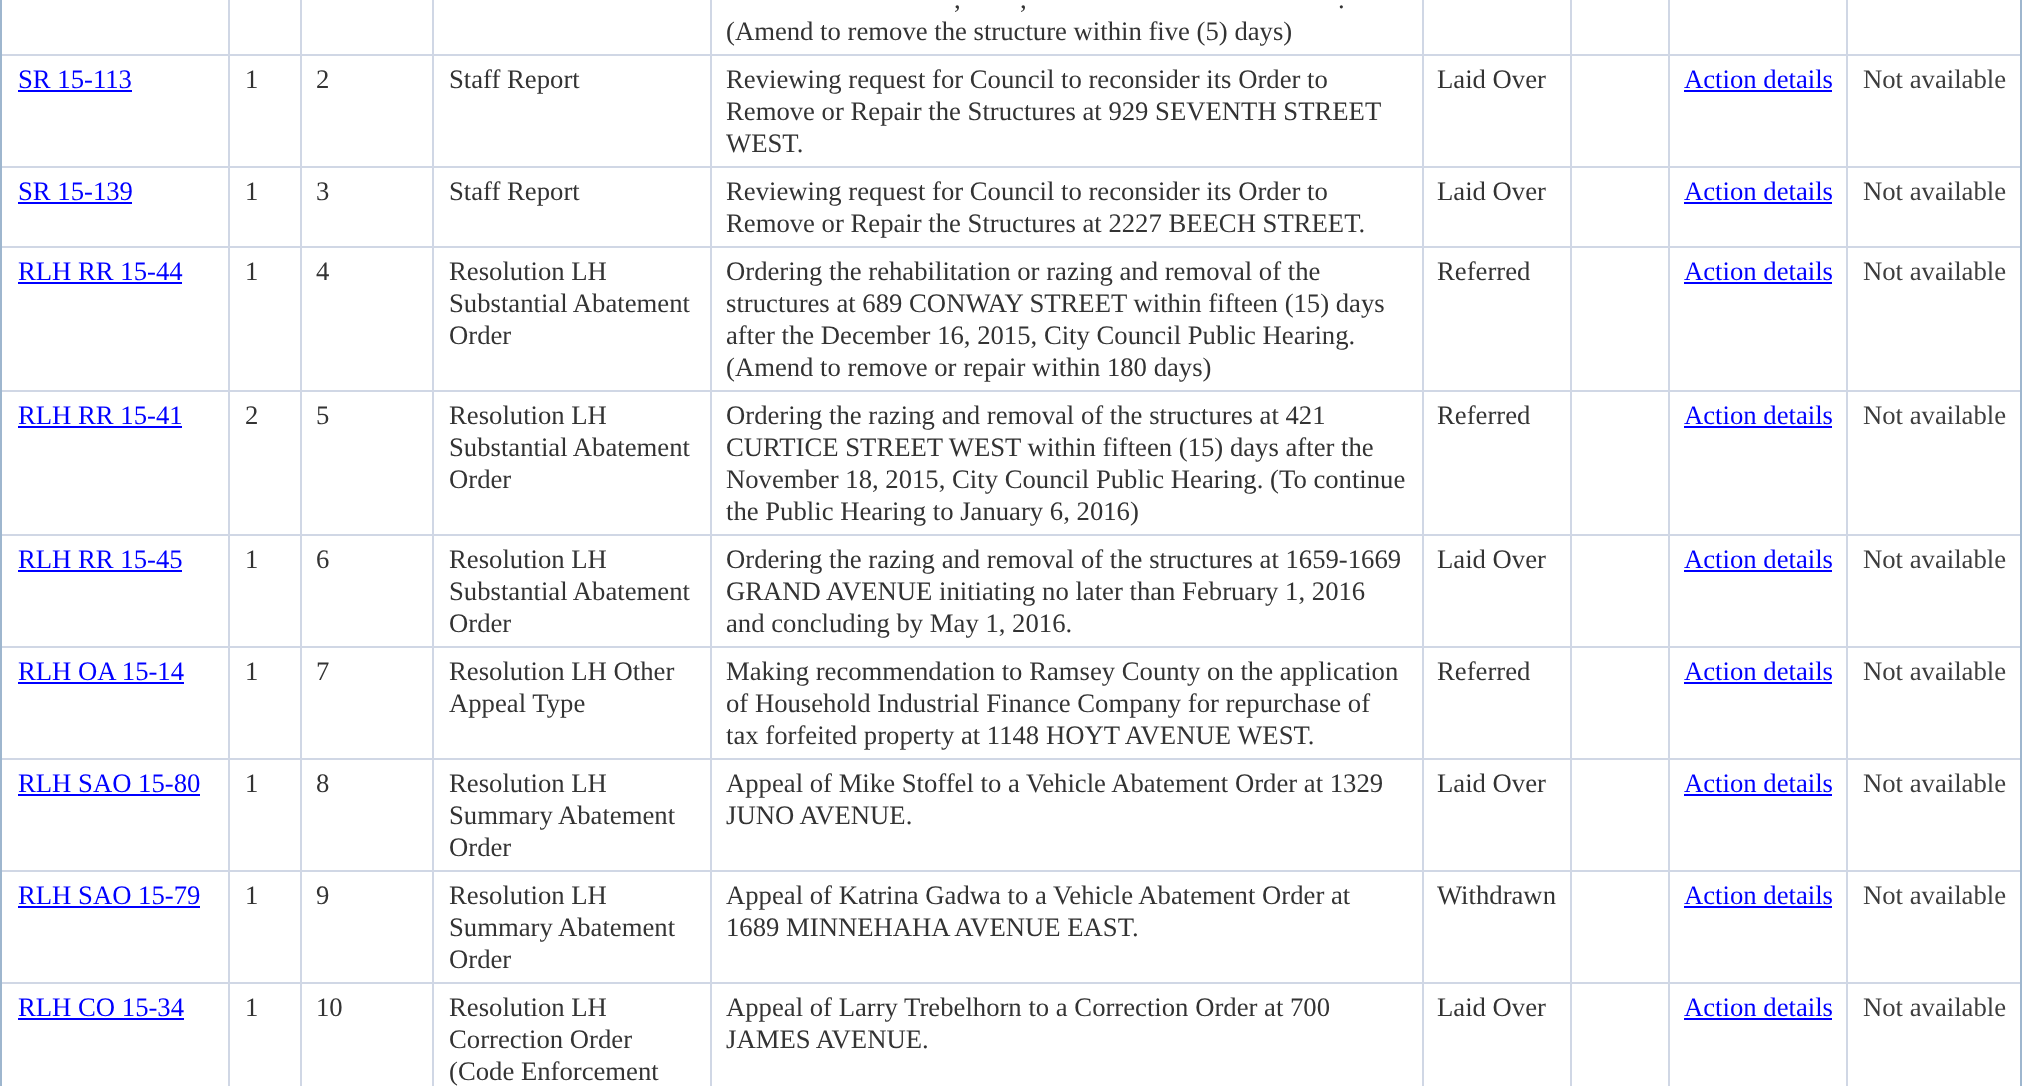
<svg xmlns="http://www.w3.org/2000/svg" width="2035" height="1086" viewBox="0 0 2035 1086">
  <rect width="100%" height="100%" fill="#fff"/>
  <path d="M1 -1h2020v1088H1z" fill="none" stroke="#9eb6ce" stroke-width="2"/>
  <path d="M2 54h2018v2H2z" fill="#d0d7e5"/>
  <path d="M228 0h2v56H228z" fill="#d0d7e5"/>
  <path d="M300 0h2v56H300z" fill="#d0d7e5"/>
  <path d="M432 0h2v56H432z" fill="#d0d7e5"/>
  <path d="M710 0h2v56H710z" fill="#d0d7e5"/>
  <path d="M1422 0h2v56H1422z" fill="#d0d7e5"/>
  <path d="M1570 0h2v56H1570z" fill="#d0d7e5"/>
  <path d="M1668 0h2v56H1668z" fill="#d0d7e5"/>
  <path d="M1846 0h2v56H1846z" fill="#d0d7e5"/>
  <path d="M2 166h2018v2H2z" fill="#d0d7e5"/>
  <path d="M18 90h114v2H18z" fill="#00f"/>
  <path d="M228 56h2v112H228z" fill="#d0d7e5"/>
  <path d="M300 56h2v112H300z" fill="#d0d7e5"/>
  <path d="M432 56h2v112H432z" fill="#d0d7e5"/>
  <path d="M710 56h2v112H710z" fill="#d0d7e5"/>
  <path d="M1422 56h2v112H1422z" fill="#d0d7e5"/>
  <path d="M1570 56h2v112H1570z" fill="#d0d7e5"/>
  <path d="M1668 56h2v112H1668z" fill="#d0d7e5"/>
  <path d="M1684 90h148v2H1684z" fill="#00f"/>
  <path d="M1846 56h2v112H1846z" fill="#d0d7e5"/>
  <path d="M2 246h2018v2H2z" fill="#d0d7e5"/>
  <path d="M18 202h114v2H18z" fill="#00f"/>
  <path d="M228 168h2v80H228z" fill="#d0d7e5"/>
  <path d="M300 168h2v80H300z" fill="#d0d7e5"/>
  <path d="M432 168h2v80H432z" fill="#d0d7e5"/>
  <path d="M710 168h2v80H710z" fill="#d0d7e5"/>
  <path d="M1422 168h2v80H1422z" fill="#d0d7e5"/>
  <path d="M1570 168h2v80H1570z" fill="#d0d7e5"/>
  <path d="M1668 168h2v80H1668z" fill="#d0d7e5"/>
  <path d="M1684 202h148v2H1684z" fill="#00f"/>
  <path d="M1846 168h2v80H1846z" fill="#d0d7e5"/>
  <path d="M2 390h2018v2H2z" fill="#d0d7e5"/>
  <path d="M18 282h164v2H18z" fill="#00f"/>
  <path d="M228 248h2v144H228z" fill="#d0d7e5"/>
  <path d="M300 248h2v144H300z" fill="#d0d7e5"/>
  <path d="M432 248h2v144H432z" fill="#d0d7e5"/>
  <path d="M710 248h2v144H710z" fill="#d0d7e5"/>
  <path d="M1422 248h2v144H1422z" fill="#d0d7e5"/>
  <path d="M1570 248h2v144H1570z" fill="#d0d7e5"/>
  <path d="M1668 248h2v144H1668z" fill="#d0d7e5"/>
  <path d="M1684 282h148v2H1684z" fill="#00f"/>
  <path d="M1846 248h2v144H1846z" fill="#d0d7e5"/>
  <path d="M2 534h2018v2H2z" fill="#d0d7e5"/>
  <path d="M18 426h164v2H18z" fill="#00f"/>
  <path d="M228 392h2v144H228z" fill="#d0d7e5"/>
  <path d="M300 392h2v144H300z" fill="#d0d7e5"/>
  <path d="M432 392h2v144H432z" fill="#d0d7e5"/>
  <path d="M710 392h2v144H710z" fill="#d0d7e5"/>
  <path d="M1422 392h2v144H1422z" fill="#d0d7e5"/>
  <path d="M1570 392h2v144H1570z" fill="#d0d7e5"/>
  <path d="M1668 392h2v144H1668z" fill="#d0d7e5"/>
  <path d="M1684 426h148v2H1684z" fill="#00f"/>
  <path d="M1846 392h2v144H1846z" fill="#d0d7e5"/>
  <path d="M2 646h2018v2H2z" fill="#d0d7e5"/>
  <path d="M18 570h164v2H18z" fill="#00f"/>
  <path d="M228 536h2v112H228z" fill="#d0d7e5"/>
  <path d="M300 536h2v112H300z" fill="#d0d7e5"/>
  <path d="M432 536h2v112H432z" fill="#d0d7e5"/>
  <path d="M710 536h2v112H710z" fill="#d0d7e5"/>
  <path d="M1422 536h2v112H1422z" fill="#d0d7e5"/>
  <path d="M1570 536h2v112H1570z" fill="#d0d7e5"/>
  <path d="M1668 536h2v112H1668z" fill="#d0d7e5"/>
  <path d="M1684 570h148v2H1684z" fill="#00f"/>
  <path d="M1846 536h2v112H1846z" fill="#d0d7e5"/>
  <path d="M2 758h2018v2H2z" fill="#d0d7e5"/>
  <path d="M18 682h166v2H18z" fill="#00f"/>
  <path d="M228 648h2v112H228z" fill="#d0d7e5"/>
  <path d="M300 648h2v112H300z" fill="#d0d7e5"/>
  <path d="M432 648h2v112H432z" fill="#d0d7e5"/>
  <path d="M710 648h2v112H710z" fill="#d0d7e5"/>
  <path d="M1422 648h2v112H1422z" fill="#d0d7e5"/>
  <path d="M1570 648h2v112H1570z" fill="#d0d7e5"/>
  <path d="M1668 648h2v112H1668z" fill="#d0d7e5"/>
  <path d="M1684 682h148v2H1684z" fill="#00f"/>
  <path d="M1846 648h2v112H1846z" fill="#d0d7e5"/>
  <path d="M2 870h2018v2H2z" fill="#d0d7e5"/>
  <path d="M18 794h182v2H18z" fill="#00f"/>
  <path d="M228 760h2v112H228z" fill="#d0d7e5"/>
  <path d="M300 760h2v112H300z" fill="#d0d7e5"/>
  <path d="M432 760h2v112H432z" fill="#d0d7e5"/>
  <path d="M710 760h2v112H710z" fill="#d0d7e5"/>
  <path d="M1422 760h2v112H1422z" fill="#d0d7e5"/>
  <path d="M1570 760h2v112H1570z" fill="#d0d7e5"/>
  <path d="M1668 760h2v112H1668z" fill="#d0d7e5"/>
  <path d="M1684 794h148v2H1684z" fill="#00f"/>
  <path d="M1846 760h2v112H1846z" fill="#d0d7e5"/>
  <path d="M2 982h2018v2H2z" fill="#d0d7e5"/>
  <path d="M18 906h182v2H18z" fill="#00f"/>
  <path d="M228 872h2v214H228z" fill="#d0d7e5"/>
  <path d="M300 872h2v214H300z" fill="#d0d7e5"/>
  <path d="M432 872h2v214H432z" fill="#d0d7e5"/>
  <path d="M710 872h2v214H710z" fill="#d0d7e5"/>
  <path d="M1422 872h2v214H1422z" fill="#d0d7e5"/>
  <path d="M1570 872h2v214H1570z" fill="#d0d7e5"/>
  <path d="M1668 872h2v214H1668z" fill="#d0d7e5"/>
  <path d="M1684 906h148v2H1684z" fill="#00f"/>
  <path d="M1846 872h2v214H1846z" fill="#d0d7e5"/>
  <path d="M18 1018h166v2H18z" fill="#00f"/>
  <path d="M1684 1018h148v2H1684z" fill="#00f"/>
  <g font-family="Liberation Serif" font-size="26.7" fill="#333">
    <text x="954" y="8">,</text>
    <text x="1020" y="8">,</text>
    <text x="1338" y="8">.</text>
    <text x="726" y="40">(Amend to remove the structure within five (5) days)</text>
  </g>
  <text x="18" y="88" font-family="Liberation Serif" font-size="26.7" fill="#00f">SR 15-113</text>
  <g font-family="Liberation Serif" font-size="26.7" fill="#333">
    <text x="245" y="88">1</text>
    <text x="316" y="88">2</text>
    <text x="449" y="88">Staff Report</text>
    <text x="726" y="88">Reviewing request for Council to reconsider its Order to</text>
    <text x="726" y="120">Remove or Repair the Structures at 929 SEVENTH STREET</text>
    <text x="726" y="152">WEST.</text>
    <text x="1437" y="88">Laid Over</text>
  </g>
  <text x="1684" y="88" font-family="Liberation Serif" font-size="26.7" fill="#00f">Action details</text>
  <text x="1863" y="88" font-family="Liberation Serif" font-size="26.7" fill="#3d3d3d">Not available</text>
  <text x="18" y="200" font-family="Liberation Serif" font-size="26.7" fill="#00f">SR 15-139</text>
  <g font-family="Liberation Serif" font-size="26.7" fill="#333">
    <text x="245" y="200">1</text>
    <text x="316" y="200">3</text>
    <text x="449" y="200">Staff Report</text>
    <text x="726" y="200">Reviewing request for Council to reconsider its Order to</text>
    <text x="726" y="232">Remove or Repair the Structures at 2227 BEECH STREET.</text>
    <text x="1437" y="200">Laid Over</text>
  </g>
  <text x="1684" y="200" font-family="Liberation Serif" font-size="26.7" fill="#00f">Action details</text>
  <text x="1863" y="200" font-family="Liberation Serif" font-size="26.7" fill="#3d3d3d">Not available</text>
  <text x="18" y="280" font-family="Liberation Serif" font-size="26.7" fill="#00f">RLH RR 15-44</text>
  <g font-family="Liberation Serif" font-size="26.7" fill="#333">
    <text x="245" y="280">1</text>
    <text x="316" y="280">4</text>
    <text x="449" y="280">Resolution LH</text>
    <text x="449" y="312">Substantial Abatement</text>
    <text x="449" y="344">Order</text>
    <text x="726" y="280">Ordering the rehabilitation or razing and removal of the</text>
    <text x="726" y="312">structures at 689 CONWAY STREET within fifteen (15) days</text>
    <text x="726" y="344">after the December 16, 2015, City Council Public Hearing.</text>
    <text x="726" y="376">(Amend to remove or repair within 180 days)</text>
    <text x="1437" y="280">Referred</text>
  </g>
  <text x="1684" y="280" font-family="Liberation Serif" font-size="26.7" fill="#00f">Action details</text>
  <text x="1863" y="280" font-family="Liberation Serif" font-size="26.7" fill="#3d3d3d">Not available</text>
  <text x="18" y="424" font-family="Liberation Serif" font-size="26.7" fill="#00f">RLH RR 15-41</text>
  <g font-family="Liberation Serif" font-size="26.7" fill="#333">
    <text x="245" y="424">2</text>
    <text x="316" y="424">5</text>
    <text x="449" y="424">Resolution LH</text>
    <text x="449" y="456">Substantial Abatement</text>
    <text x="449" y="488">Order</text>
    <text x="726" y="424">Ordering the razing and removal of the structures at 421</text>
    <text x="726" y="456">CURTICE STREET WEST within fifteen (15) days after the</text>
    <text x="726" y="488">November 18, 2015, City Council Public Hearing. (To continue</text>
    <text x="726" y="520">the Public Hearing to January 6, 2016)</text>
    <text x="1437" y="424">Referred</text>
  </g>
  <text x="1684" y="424" font-family="Liberation Serif" font-size="26.7" fill="#00f">Action details</text>
  <text x="1863" y="424" font-family="Liberation Serif" font-size="26.7" fill="#3d3d3d">Not available</text>
  <text x="18" y="568" font-family="Liberation Serif" font-size="26.7" fill="#00f">RLH RR 15-45</text>
  <g font-family="Liberation Serif" font-size="26.7" fill="#333">
    <text x="245" y="568">1</text>
    <text x="316" y="568">6</text>
    <text x="449" y="568">Resolution LH</text>
    <text x="449" y="600">Substantial Abatement</text>
    <text x="449" y="632">Order</text>
    <text x="726" y="568">Ordering the razing and removal of the structures at 1659-1669</text>
    <text x="726" y="600">GRAND AVENUE initiating no later than February 1, 2016</text>
    <text x="726" y="632">and concluding by May 1, 2016.</text>
    <text x="1437" y="568">Laid Over</text>
  </g>
  <text x="1684" y="568" font-family="Liberation Serif" font-size="26.7" fill="#00f">Action details</text>
  <text x="1863" y="568" font-family="Liberation Serif" font-size="26.7" fill="#3d3d3d">Not available</text>
  <text x="18" y="680" font-family="Liberation Serif" font-size="26.7" fill="#00f">RLH OA 15-14</text>
  <g font-family="Liberation Serif" font-size="26.7" fill="#333">
    <text x="245" y="680">1</text>
    <text x="316" y="680">7</text>
    <text x="449" y="680">Resolution LH Other</text>
    <text x="449" y="712">Appeal Type</text>
    <text x="726" y="680">Making recommendation to Ramsey County on the application</text>
    <text x="726" y="712">of Household Industrial Finance Company for repurchase of</text>
    <text x="726" y="744">tax forfeited property at 1148 HOYT AVENUE WEST.</text>
    <text x="1437" y="680">Referred</text>
  </g>
  <text x="1684" y="680" font-family="Liberation Serif" font-size="26.7" fill="#00f">Action details</text>
  <text x="1863" y="680" font-family="Liberation Serif" font-size="26.7" fill="#3d3d3d">Not available</text>
  <text x="18" y="792" font-family="Liberation Serif" font-size="26.7" fill="#00f">RLH SAO 15-80</text>
  <g font-family="Liberation Serif" font-size="26.7" fill="#333">
    <text x="245" y="792">1</text>
    <text x="316" y="792">8</text>
    <text x="449" y="792">Resolution LH</text>
    <text x="449" y="824">Summary Abatement</text>
    <text x="449" y="856">Order</text>
    <text x="726" y="792">Appeal of Mike Stoffel to a Vehicle Abatement Order at 1329</text>
    <text x="726" y="824">JUNO AVENUE.</text>
    <text x="1437" y="792">Laid Over</text>
  </g>
  <text x="1684" y="792" font-family="Liberation Serif" font-size="26.7" fill="#00f">Action details</text>
  <text x="1863" y="792" font-family="Liberation Serif" font-size="26.7" fill="#3d3d3d">Not available</text>
  <text x="18" y="904" font-family="Liberation Serif" font-size="26.7" fill="#00f">RLH SAO 15-79</text>
  <g font-family="Liberation Serif" font-size="26.7" fill="#333">
    <text x="245" y="904">1</text>
    <text x="316" y="904">9</text>
    <text x="449" y="904">Resolution LH</text>
    <text x="449" y="936">Summary Abatement</text>
    <text x="449" y="968">Order</text>
    <text x="726" y="904">Appeal of Katrina Gadwa to a Vehicle Abatement Order at</text>
    <text x="726" y="936">1689 MINNEHAHA AVENUE EAST.</text>
    <text x="1437" y="904">Withdrawn</text>
  </g>
  <text x="1684" y="904" font-family="Liberation Serif" font-size="26.7" fill="#00f">Action details</text>
  <text x="1863" y="904" font-family="Liberation Serif" font-size="26.7" fill="#3d3d3d">Not available</text>
  <text x="18" y="1016" font-family="Liberation Serif" font-size="26.7" fill="#00f">RLH CO 15-34</text>
  <g font-family="Liberation Serif" font-size="26.7" fill="#333">
    <text x="245" y="1016">1</text>
    <text x="316" y="1016">10</text>
    <text x="449" y="1016">Resolution LH</text>
    <text x="449" y="1048">Correction Order</text>
    <text x="449" y="1080">(Code Enforcement</text>
    <text x="726" y="1016">Appeal of Larry Trebelhorn to a Correction Order at 700</text>
    <text x="726" y="1048">JAMES AVENUE.</text>
    <text x="1437" y="1016">Laid Over</text>
  </g>
  <text x="1684" y="1016" font-family="Liberation Serif" font-size="26.7" fill="#00f">Action details</text>
  <text x="1863" y="1016" font-family="Liberation Serif" font-size="26.7" fill="#3d3d3d">Not available</text>
</svg>
